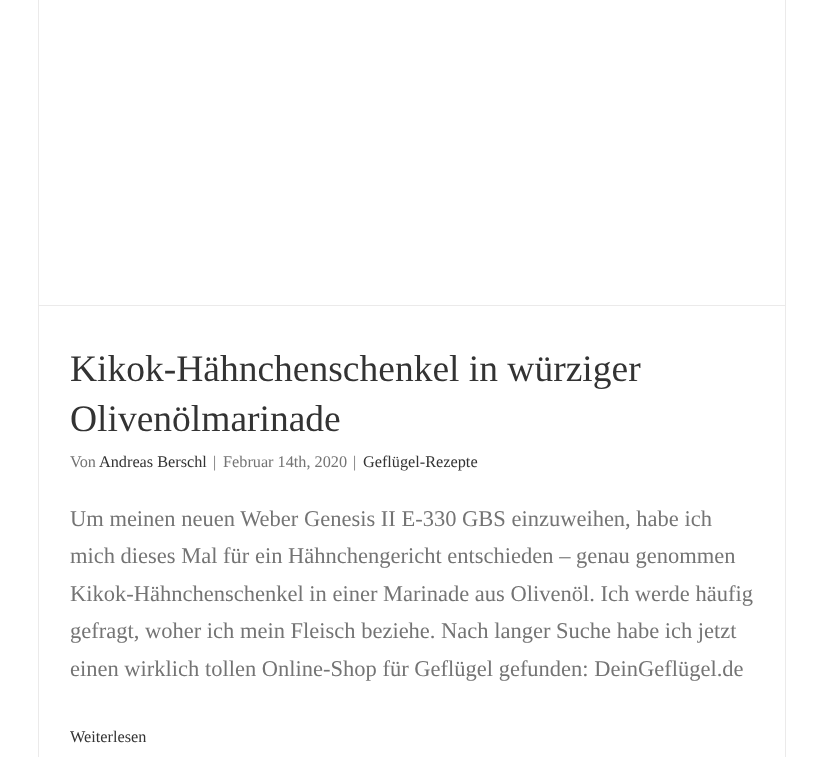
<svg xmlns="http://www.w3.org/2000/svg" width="823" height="757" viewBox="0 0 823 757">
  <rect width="100%" height="100%" fill="#fff"/>
  <path d="M785 0h1v757H785z" fill="#ebeaea"/>
  <path d="M38 0h1v757H38z" fill="#ebeaea"/>
  <path d="M39 305h746v1H39z" fill="#ebeaea"/>
  <g font-family="Liberation Serif" font-size="37.5" fill="#333">
    <text x="70" y="381">Kikok-Hähnchenschenkel in würziger</text>
    <text x="70" y="431">Olivenölmarinade</text>
  </g>
  <text x="70" y="467" font-family="Liberation Serif" font-size="16.25" fill="#747474">Von</text>
  <text x="99" y="467" font-family="Liberation Serif" font-size="16.25" fill="#333">Andreas Berschl</text>
  <g font-family="Liberation Serif" font-size="16.25" fill="#747474">
    <text x="213" y="467">|</text>
    <text x="223" y="467">Februar 14th, 2020</text>
    <text x="353" y="467">|</text>
  </g>
  <text x="363" y="467" font-family="Liberation Serif" font-size="16.25" fill="#333">Geflügel-Rezepte</text>
  <g font-family="Liberation Serif" font-size="22.5" fill="#747474">
    <text x="70" y="526">Um meinen neuen Weber Genesis II E-330 GBS einzuweihen, habe ich</text>
    <text x="70" y="563">mich dieses Mal für ein Hähnchengericht entschieden – genau genommen</text>
    <text x="70" y="601">Kikok-Hähnchenschenkel in einer Marinade aus Olivenöl. Ich werde häufig</text>
    <text x="70" y="638">gefragt, woher ich mein Fleisch beziehe. Nach langer Suche habe ich jetzt</text>
    <text x="70" y="676">einen wirklich tollen Online-Shop für Geflügel gefunden: DeinGeflügel.de</text>
  </g>
  <text x="70" y="742" font-family="Liberation Serif" font-size="16.25" fill="#333">Weiterlesen</text>
</svg>
